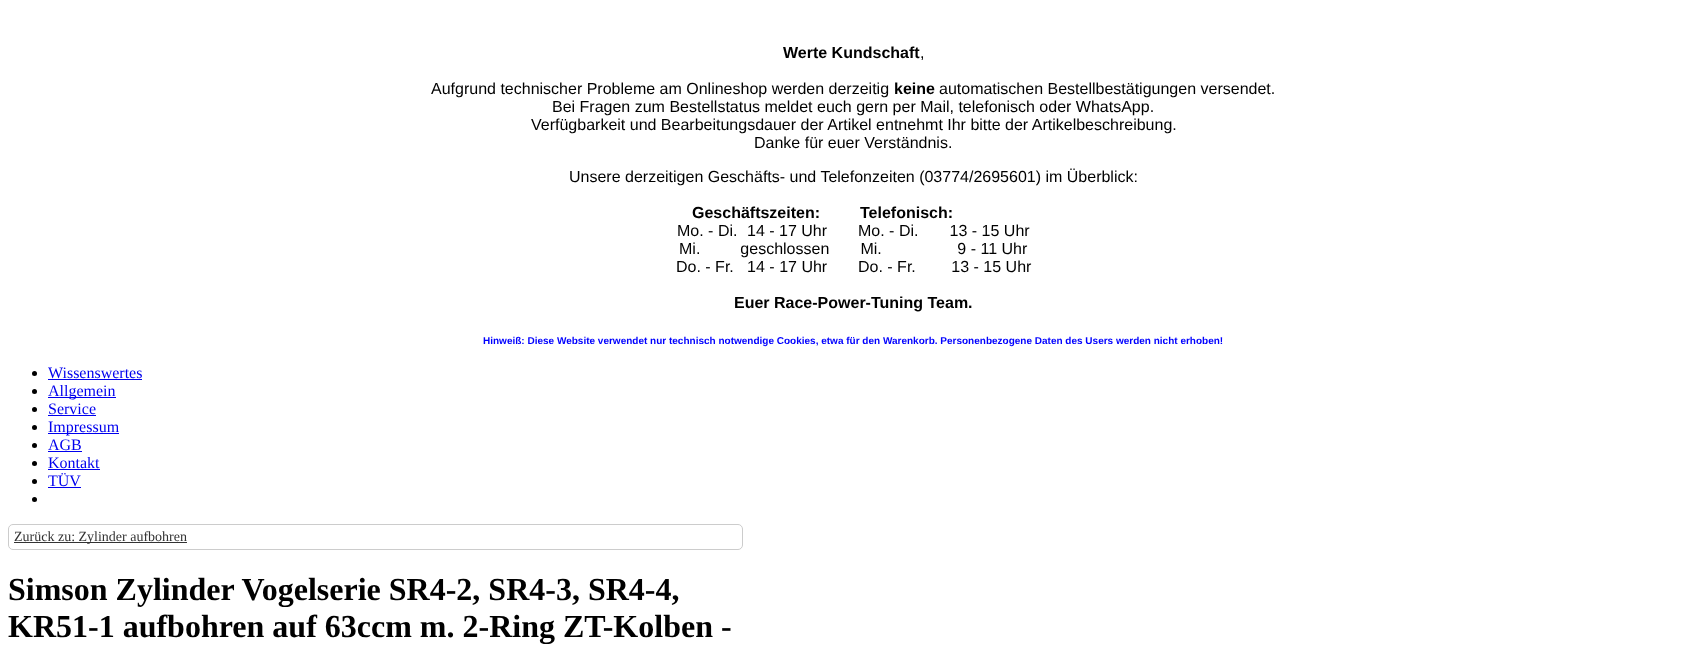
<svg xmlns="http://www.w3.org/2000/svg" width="1707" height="664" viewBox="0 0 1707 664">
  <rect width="100%" height="100%" fill="#fff"/>
  <circle cx="34.5" cy="373.5" r="2.5" fill="#000"/>
  <path d="M48 379h94v1H48z" fill="#00e"/>
  <circle cx="34.5" cy="391.5" r="2.5" fill="#000"/>
  <path d="M48 397h68v1H48z" fill="#00e"/>
  <circle cx="34.5" cy="409.5" r="2.5" fill="#000"/>
  <path d="M48 415h48v1H48z" fill="#00e"/>
  <circle cx="34.5" cy="427.5" r="2.5" fill="#000"/>
  <path d="M48 433h71v1H48z" fill="#00e"/>
  <circle cx="34.5" cy="445.5" r="2.5" fill="#000"/>
  <path d="M48 451h34v1H48z" fill="#00e"/>
  <circle cx="34.5" cy="463.5" r="2.5" fill="#000"/>
  <path d="M48 469h52v1H48z" fill="#00e"/>
  <circle cx="34.5" cy="481.5" r="2.5" fill="#000"/>
  <path d="M48 487h33v1H48z" fill="#00e"/>
  <circle cx="34.5" cy="499.5" r="2.5" fill="#000"/>
  <rect x="8.5" y="524.5" width="734" height="25" rx="4.5" fill="none" stroke="#ccc"/>
  <path d="M14 542h173v1H14z" fill="#333"/>
  <text x="783" y="58" font-family="Liberation Sans" font-size="16" font-weight="bold" fill="#000">Werte Kundschaft</text>
  <g font-family="Liberation Sans" font-size="16" fill="#000">
    <text x="920" y="58">,</text>
    <text x="431" y="94">Aufgrund technischer Probleme am Onlineshop werden derzeitig</text>
  </g>
  <text x="894" y="94" font-family="Liberation Sans" font-size="16" font-weight="bold" fill="#000">keine</text>
  <g font-family="Liberation Sans" font-size="16" fill="#000">
    <text x="939" y="94">automatischen Bestellbestätigungen versendet.</text>
    <text x="552" y="112">Bei Fragen zum Bestellstatus meldet euch gern per Mail, telefonisch oder WhatsApp.</text>
    <text x="531" y="130">Verfügbarkeit und Bearbeitungsdauer der Artikel entnehmt Ihr bitte der Artikelbeschreibung.</text>
    <text x="754" y="148">Danke für euer Verständnis.</text>
    <text x="569" y="182">Unsere derzeitigen Geschäfts- und Telefonzeiten (03774/2695601) im Überblick:</text>
  </g>
  <g font-family="Liberation Sans" font-size="16" font-weight="bold" fill="#000">
    <text x="692" y="218">Geschäftszeiten:</text>
    <text x="860" y="218">Telefonisch:</text>
  </g>
  <g font-family="Liberation Sans" font-size="16" fill="#000">
    <text x="677" y="236">Mo. - Di.</text>
    <text x="747" y="236">14 - 17 Uhr</text>
    <text x="858" y="236" xml:space="preserve">Mo. - Di.       13 - 15 Uhr</text>
    <text x="679" y="254" xml:space="preserve">Mi.         geschlossen       Mi.                 9 - 11 Uhr</text>
    <text x="676" y="272" xml:space="preserve">Do. - Fr.   14 - 17 Uhr</text>
    <text x="858" y="272" xml:space="preserve">Do. - Fr.        13 - 15 Uhr</text>
  </g>
  <text x="734" y="308" font-family="Liberation Sans" font-size="16" font-weight="bold" fill="#000">Euer Race-Power-Tuning Team.</text>
  <text x="483" y="344" font-family="Liberation Sans" font-size="10" font-weight="bold" fill="#00f">Hinweiß: Diese Website verwendet nur technisch notwendige Cookies, etwa für den Warenkorb. Personenbezogene Daten des Users werden nicht erhoben!</text>
  <g font-family="Liberation Serif" font-size="16" fill="#00e">
    <text x="48" y="378">Wissenswertes</text>
    <text x="48" y="396">Allgemein</text>
    <text x="48" y="414">Service</text>
    <text x="48" y="432">Impressum</text>
    <text x="48" y="450">AGB</text>
    <text x="48" y="468">Kontakt</text>
    <text x="48" y="486">TÜV</text>
  </g>
  <text x="14" y="541" font-family="Liberation Serif" font-size="14" fill="#333">Zurück zu: Zylinder aufbohren</text>
  <g font-family="Liberation Serif" font-size="32" font-weight="bold" fill="#000">
    <text x="8" y="600">Simson Zylinder Vogelserie SR4-2, SR4-3, SR4-4,</text>
    <text x="8" y="637">KR51-1 aufbohren auf 63ccm m. 2-Ring ZT-Kolben -</text>
  </g>
</svg>
